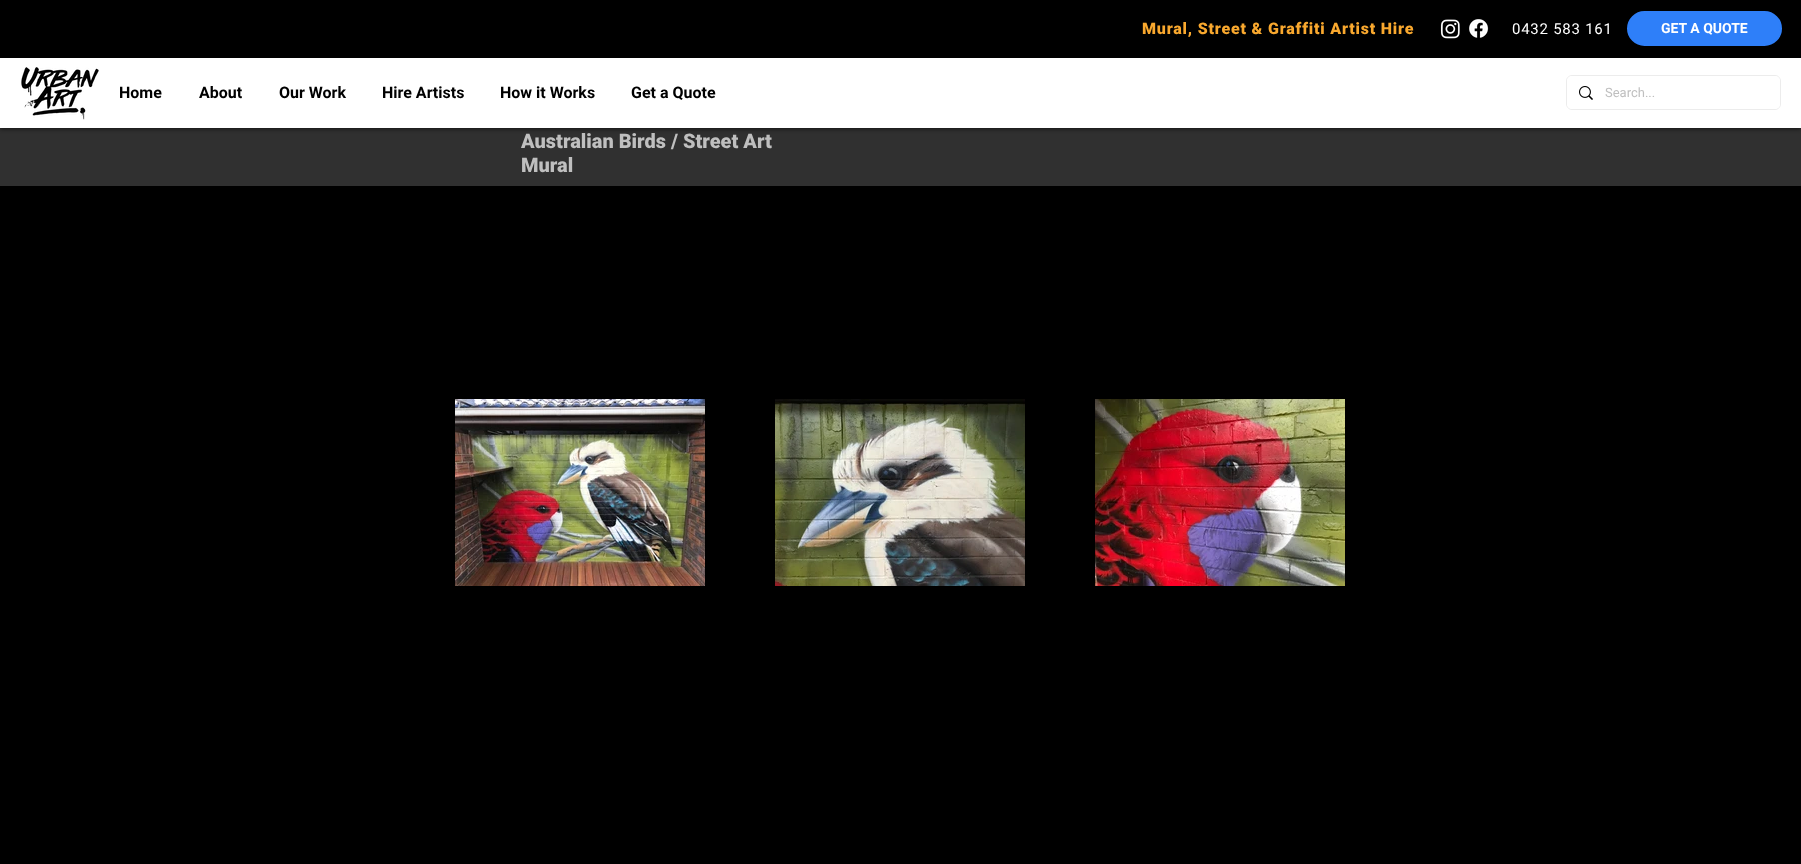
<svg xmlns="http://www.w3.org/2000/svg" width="1801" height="864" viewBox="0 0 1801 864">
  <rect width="100%" height="100%" fill="#000"/>
  <path d="M0 128h1801v58H0z" fill="#303030"/>
  <path d="M0 1h1801v128H0z" fill="#00000099" filter="blur(2px)"/>
  <path d="M0 58h1801v70H0z" fill="#fff"/>
  <image x="1440" y="19" width="20" height="20" href="img/1.png"/>
  <image x="1469" y="19" width="20" height="19" href="img/2.png"/>
  <rect x="1628" y="12" width="153" height="33" rx="16.5" fill="#2e7ff9" stroke="#2e7ff9" stroke-width="2"/>
  <image x="21" y="67" width="78" height="53" href="img/3.png"/>
  <rect x="1566.5" y="75.5" width="214" height="34" rx="5.5" fill="none" stroke="#ececec"/>
  <rect x="1567" y="76" width="213" height="33" rx="5" fill="#fff"/>
  <image x="1579" y="86" width="14" height="14" href="img/4.png"/>
  <image x="455" y="399" width="250" height="187" href="img/5.png"/>
  <image x="775" y="399" width="250" height="187" href="img/6.png"/>
  <image x="1095" y="399" width="250" height="187" href="img/7.png"/>
  <text x="1142" y="34" font-family="Roboto" font-size="16" font-weight="900" letter-spacing="0.8" fill="#f9a82e">Mural, Street &amp; Graffiti Artist Hire</text>
  <text x="1512" y="34" font-family="Roboto" font-size="15" letter-spacing="0.75" fill="#fff">0432 583 161</text>
  <text x="1661" y="33" font-family="Roboto" font-size="14" font-weight="bold" fill="#fff">GET A QUOTE</text>
  <g font-family="Roboto" font-size="16" font-weight="bold" fill="#000">
    <text x="119" y="98">Home</text>
    <text x="199" y="98">About</text>
    <text x="279" y="98">Our Work</text>
    <text x="382" y="98">Hire Artists</text>
    <text x="500" y="98">How it Works</text>
    <text x="631" y="98">Get a Quote</text>
  </g>
  <text x="1605" y="97" font-family="Roboto" font-size="13" fill="#bfbfbf">Search...</text>
  <g font-family="Roboto" font-size="20" font-weight="900" fill="#bfbfbf">
    <text x="521" y="148">Australian Birds / Street Art</text>
    <text x="521" y="172">Mural</text>
  </g>
</svg>
